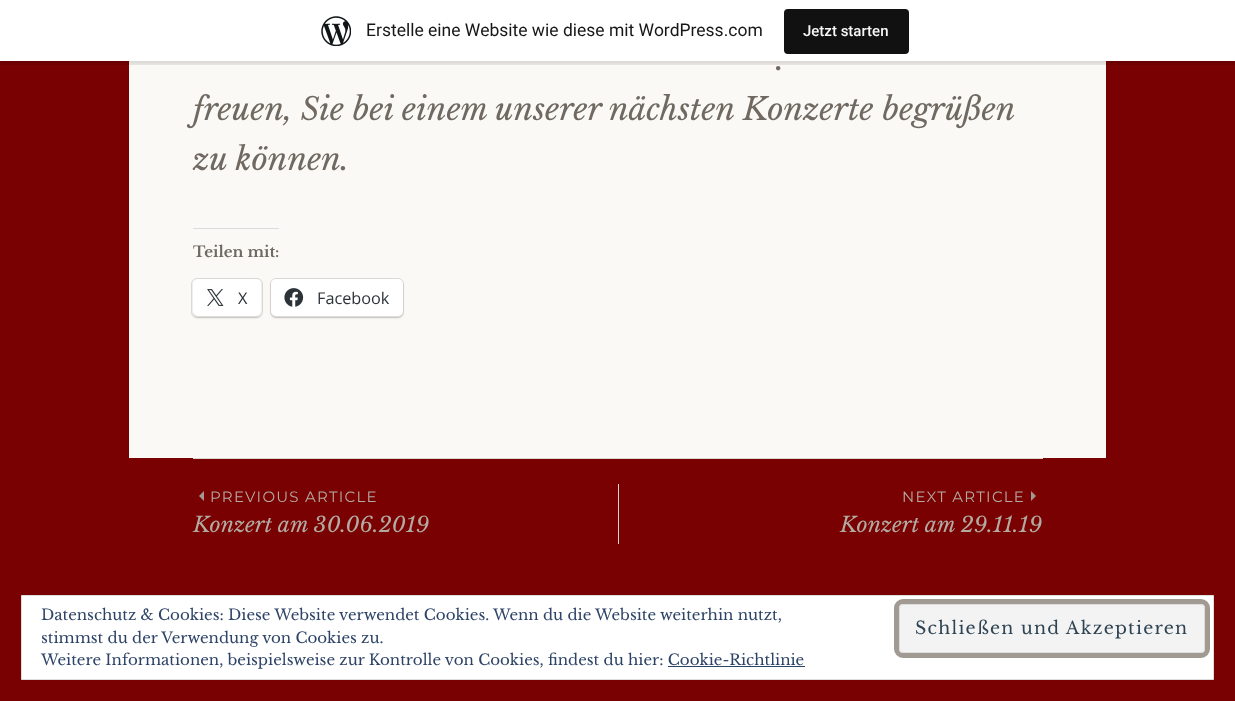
<svg xmlns="http://www.w3.org/2000/svg" width="1235" height="701" viewBox="0 0 1235 701">
  <rect width="100%" height="100%" fill="#7a0101"/>
  <path d="M129 61h977v397H129z" fill="#faf9f5"/>
  <path d="M0 1h1235v62H0z" fill="#0000000d" filter="blur(1px)"/>
  <path d="M1 61V65H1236V4H1235V61Z" fill="#00000014"/>
  <path d="M0 0h1235v61H0z" fill="#fff"/>
  <image x="321" y="16" width="30" height="30" href="img/1.png"/>
  <rect x="784" y="9" width="125" height="45" rx="4" fill="#111"/>
  <path d="M193 228h86v1H193z" fill="#dcdcde"/>
  <rect x="191.5" y="278.5" width="71" height="39" rx="5.5" fill="none" stroke="#dcdbd8"/>
  <rect x="193" y="280" width="68" height="38" rx="5" fill="#0000001f" filter="blur(1px)"/>
  <rect x="193" y="279" width="68" height="37" rx="5" fill="#fff"/>
  <image x="207" y="289" width="17" height="17" href="img/2.png"/>
  <rect x="270.5" y="278.5" width="133" height="39" rx="5.5" fill="none" stroke="#dcdbd8"/>
  <rect x="271" y="280" width="132" height="38" rx="5" fill="#0000001f" filter="blur(1px)"/>
  <rect x="271" y="279" width="132" height="37" rx="5" fill="#fff"/>
  <image x="284" y="288" width="20" height="19" href="img/3.png"/>
  <path d="M193 458h850v1H193z" fill="#d9d6d0"/>
  <path d="M204 491V501L199 496Z" fill="#a09a92"/>
  <path d="M618 484h1v60H618z" fill="#d9d6d0"/>
  <path d="M1031 501V491L1036 496Z" fill="#a09a92"/>
  <path d="M21.5 595.5h1192v84H21.5z" fill="#fff" stroke="#dedede"/>
  <rect x="899.5" y="604.5" width="305" height="48" rx="3.5" fill="#f3f3f3" stroke="#dedede"/>
  <rect x="896.5" y="601.5" width="311" height="54" rx="6.5" fill="none" stroke="#a09a92" stroke-width="5"/>
  <path d="M668 666h137v1H668z" fill="#2e4467"/>
  <text x="366" y="36" font-family="Roboto" font-size="17.5" fill="#171717">Erstelle eine Website wie diese mit WordPress.com</text>
  <text x="803" y="36" font-family="Roboto" font-size="15" font-weight="500" fill="#f6f7f7">Jetzt starten</text>
  <g font-family="Libre Baskerville" font-size="31.25" font-style="italic" fill="#6f6961">
    <text x="776" y="70">.</text>
    <text x="193" y="120">freuen, Sie bei einem unserer nächsten Konzerte begrüßen</text>
    <text x="193" y="170">zu können.</text>
  </g>
  <text x="193" y="257" font-family="Libre Baskerville" font-size="15" font-weight="bold" fill="#6f6961">Teilen mit:</text>
  <g font-family="Open Sans" font-size="16.25" fill="#2c3338">
    <text x="238" y="304">X</text>
    <text x="317" y="304">Facebook</text>
  </g>
  <text x="210" y="502" font-family="Montserrat" font-size="15" font-weight="100" letter-spacing="1.25" fill="#b2aba3">PREVIOUS ARTICLE</text>
  <text x="193" y="532" font-family="Libre Baskerville" font-size="21.25" font-style="italic" fill="#b2aba3">Konzert am 30.06.2019</text>
  <text x="902" y="502" font-family="Montserrat" font-size="15" font-weight="100" letter-spacing="1.25" fill="#b2aba3">NEXT ARTICLE</text>
  <text x="840" y="532" font-family="Libre Baskerville" font-size="21.25" font-style="italic" fill="#b2aba3">Konzert am 29.11.19</text>
  <g font-family="Libre Baskerville" font-size="15" fill="#2e4467">
    <text x="41" y="620">Datenschutz &amp; Cookies: Diese Website verwendet Cookies. Wenn du die Website weiterhin nutzt,</text>
    <text x="41" y="643">stimmst du der Verwendung von Cookies zu.</text>
  </g>
  <text x="915" y="634" font-family="Libre Baskerville" font-size="17.5" letter-spacing="1.25" fill="#2e4453">Schließen und Akzeptieren</text>
  <text x="41" y="665" font-family="Libre Baskerville" font-size="15" fill="#2e4467">Weitere Informationen, beispielsweise zur Kontrolle von Cookies, findest du hier: Cookie-Richtlinie</text>
</svg>
